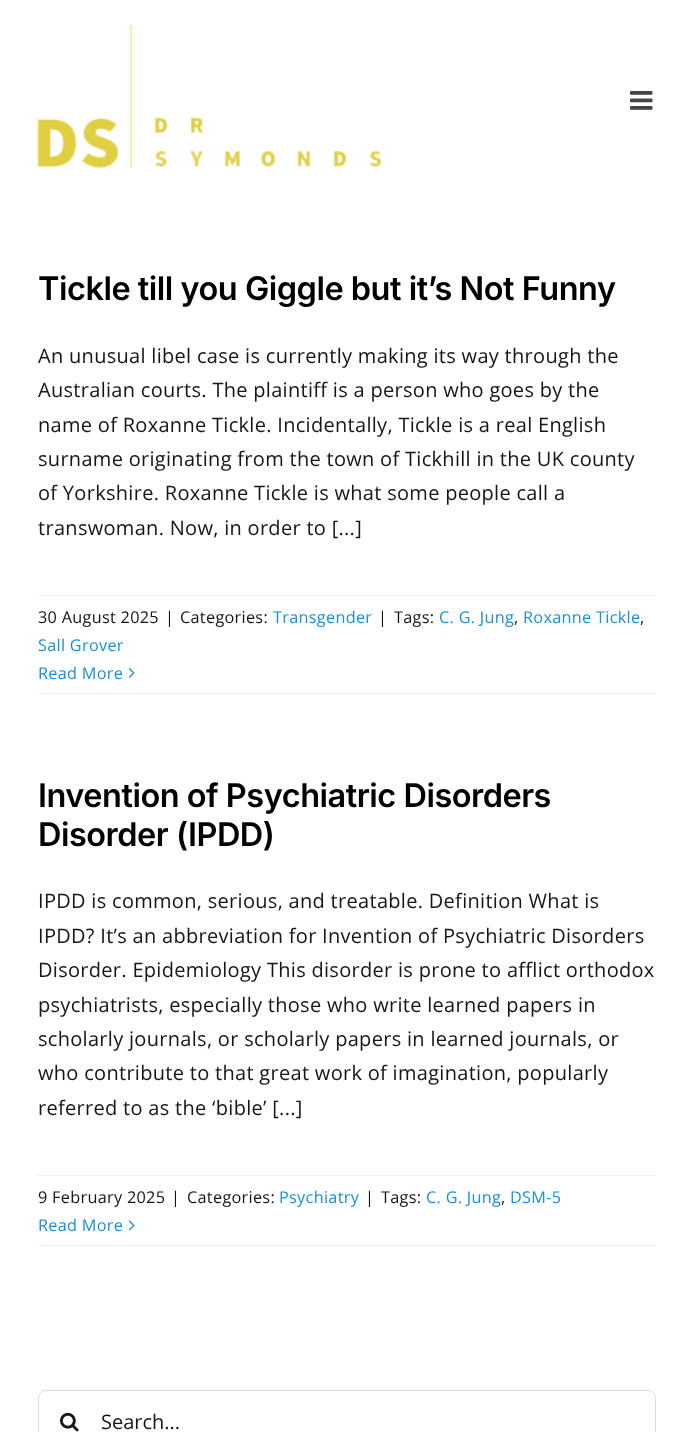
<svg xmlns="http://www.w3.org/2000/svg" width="693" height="1432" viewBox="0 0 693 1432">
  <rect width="100%" height="100%" fill="#fff"/>
  <image x="37" y="25" width="345" height="143" href="img/1.png"/>
  <image x="630" y="91" width="23" height="19" href="img/2.png"/>
  <path d="M38 595h618v1H38z" fill="#f2f3f5"/>
  <path d="M38 693h618v1H38z" fill="#f2f3f5"/>
  <image x="128" y="668" width="7" height="10" href="img/3.png"/>
  <path d="M38 1175h618v1H38z" fill="#f2f3f5"/>
  <path d="M38 1245h618v1H38z" fill="#f2f3f5"/>
  <image x="128" y="1220" width="7" height="11" href="img/4.png"/>
  <rect x="38.5" y="1390.5" width="617" height="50" rx="7.5" fill="none" stroke="#ddd"/>
  <image x="60" y="1412" width="19" height="20" href="img/5.png"/>
  <text x="38" y="300" font-family="Inter" font-size="32.5" font-weight="600" letter-spacing="-0.5" fill="#000">Tickle till you Giggle but it’s Not Funny</text>
  <g font-family="Open Sans" font-size="20" letter-spacing="0.3" fill="#141617">
    <text x="38" y="363">An unusual libel case is currently making its way through the</text>
    <text x="38" y="397">Australian courts. The plaintiff is a person who goes by the</text>
    <text x="38" y="432">name of Roxanne Tickle. Incidentally, Tickle is a real English</text>
    <text x="38" y="466">surname originating from the town of Tickhill in the UK county</text>
    <text x="38" y="500">of Yorkshire. Roxanne Tickle is what some people call a</text>
    <text x="38" y="535">transwoman. Now, in order to [...]</text>
  </g>
  <g font-family="Open Sans" font-size="16.25" letter-spacing="0.3" fill="#141617">
    <text x="38" y="623">30 August 2025</text>
    <text x="165" y="623">|</text>
    <text x="180" y="623">Categories:</text>
  </g>
  <text x="273" y="623" font-family="Open Sans" font-size="16.25" letter-spacing="0.3" fill="#198fd9">Transgender</text>
  <g font-family="Open Sans" font-size="16.25" letter-spacing="0.3" fill="#141617">
    <text x="378" y="623">|</text>
    <text x="394" y="623">Tags:</text>
  </g>
  <text x="439" y="623" font-family="Open Sans" font-size="16.25" letter-spacing="0.3" fill="#198fd9">C. G. Jung</text>
  <text x="514" y="623" font-family="Open Sans" font-size="16.25" letter-spacing="0.3" fill="#141617">,</text>
  <text x="523" y="623" font-family="Open Sans" font-size="16.25" letter-spacing="0.3" fill="#198fd9">Roxanne Tickle</text>
  <text x="640" y="623" font-family="Open Sans" font-size="16.25" letter-spacing="0.3" fill="#141617">,</text>
  <g font-family="Open Sans" font-size="16.25" letter-spacing="0.3" fill="#198fd9">
    <text x="38" y="651">Sall Grover</text>
    <text x="38" y="679">Read More</text>
  </g>
  <g font-family="Inter" font-size="32.5" font-weight="600" letter-spacing="-0.5" fill="#000">
    <text x="38" y="807">Invention of Psychiatric Disorders</text>
    <text x="38" y="846">Disorder (IPDD)</text>
  </g>
  <g font-family="Open Sans" font-size="20" letter-spacing="0.3" fill="#141617">
    <text x="38" y="908">IPDD is common, serious, and treatable. Definition What is</text>
    <text x="38" y="943">IPDD? It’s an abbreviation for Invention of Psychiatric Disorders</text>
    <text x="38" y="977">Disorder. Epidemiology This disorder is prone to afflict orthodox</text>
    <text x="38" y="1012">psychiatrists, especially those who write learned papers in</text>
    <text x="38" y="1046">scholarly journals, or scholarly papers in learned journals, or</text>
    <text x="38" y="1080">who contribute to that great work of imagination, popularly</text>
    <text x="38" y="1115">referred to as the ‘bible’ [...]</text>
  </g>
  <g font-family="Open Sans" font-size="16.25" letter-spacing="0.3" fill="#141617">
    <text x="38" y="1203">9 February 2025</text>
    <text x="171" y="1203">|</text>
    <text x="187" y="1203">Categories:</text>
  </g>
  <text x="279" y="1203" font-family="Open Sans" font-size="16.25" letter-spacing="0.3" fill="#198fd9">Psychiatry</text>
  <g font-family="Open Sans" font-size="16.25" letter-spacing="0.3" fill="#141617">
    <text x="365" y="1203">|</text>
    <text x="381" y="1203">Tags:</text>
  </g>
  <text x="426" y="1203" font-family="Open Sans" font-size="16.25" letter-spacing="0.3" fill="#198fd9">C. G. Jung</text>
  <text x="501" y="1203" font-family="Open Sans" font-size="16.25" letter-spacing="0.3" fill="#141617">,</text>
  <g font-family="Open Sans" font-size="16.25" letter-spacing="0.3" fill="#198fd9">
    <text x="510" y="1203">DSM-5</text>
    <text x="38" y="1231">Read More</text>
  </g>
  <text x="101" y="1429" font-family="Open Sans" font-size="20" fill="#141617">Search...</text>
</svg>
